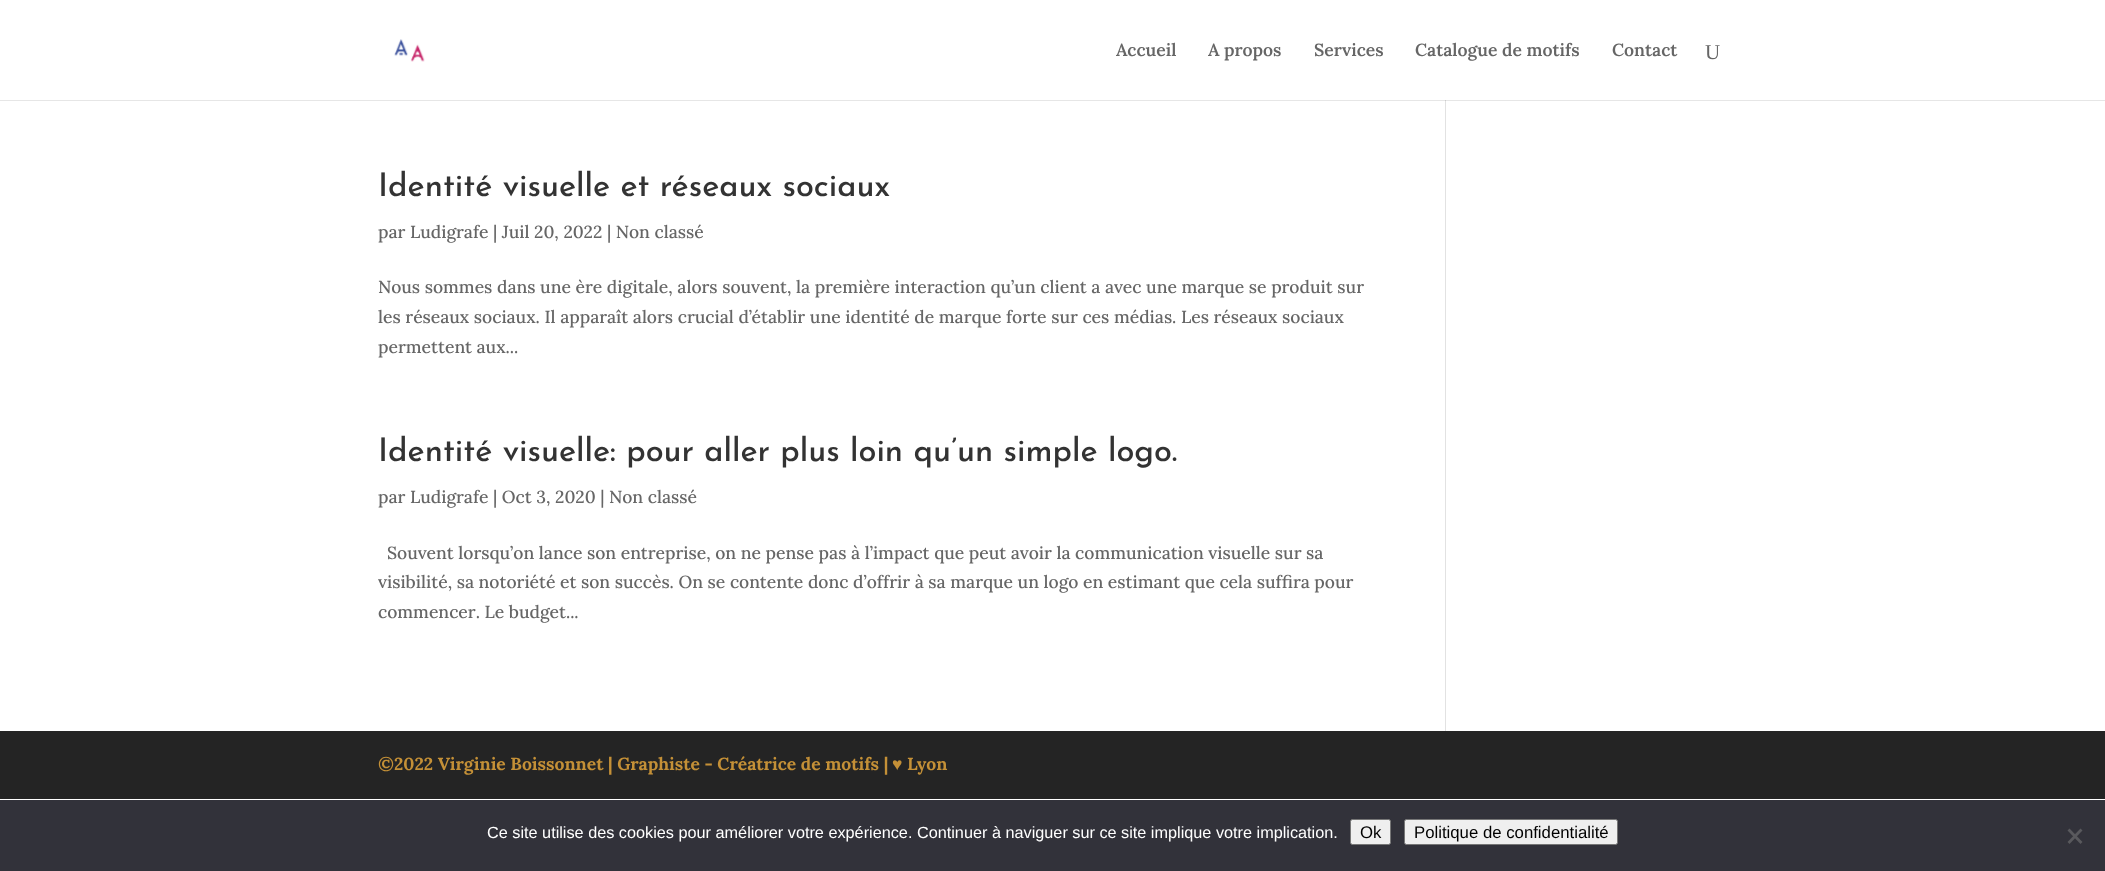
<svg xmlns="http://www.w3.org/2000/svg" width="2105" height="871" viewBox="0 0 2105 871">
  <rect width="100%" height="100%" fill="#fff"/>
  <path d="M0 100h2105v1H0z" fill="#e6e6e6"/>
  <image x="394" y="39" width="31" height="23" href="img/1.png"/>
  <path d="M1445 100h1v631H1445z" fill="#e2e2e2"/>
  <path d="M1445 100h1v1H1445z" fill="#cbcbcb"/>
  <path d="M0 731h2105v68H0z" fill="#242424"/>
  <path d="M0 800h2105v71H0z" fill="#32323a"/>
  <rect x="1350.5" y="819.5" width="40" height="25" rx="2" fill="#efefef" stroke="#767676"/>
  <rect x="1404.5" y="819.5" width="213" height="25" rx="2" fill="#efefef" stroke="#767676"/>
  <path d="M2080.5 828.5L2082.5 830.5L2069.5 844L2067.5 842Z" fill="#59595d"/>
  <path d="M2067.5 830.5L2069.5 828.5L2082.5 842L2080.5 844Z" fill="#59595d"/>
  <g font-family="Lora" font-size="17.5" font-weight="600" fill="#666">
    <text x="1116" y="56">Accueil</text>
    <text x="1208" y="56">A propos</text>
    <text x="1314" y="56">Services</text>
    <text x="1415" y="56">Catalogue de motifs</text>
    <text x="1612" y="56">Contact</text>
  </g>
  <text x="1705" y="59" font-family="Liberation Serif" font-size="21" fill="#666">U</text>
  <text x="378" y="196" font-family="Josefin Sans" font-size="32.5" font-weight="500" fill="#333">Identité visuelle et réseaux sociaux</text>
  <g font-family="Lora" font-size="17.5" font-weight="500" fill="#666">
    <text x="378" y="238">par Ludigrafe | Juil 20, 2022 | Non classé</text>
    <text x="378" y="293">Nous sommes dans une ère digitale, alors souvent, la première interaction qu’un client a avec une marque se produit sur</text>
    <text x="378" y="323">les réseaux sociaux. Il apparaît alors crucial d’établir une identité de marque forte sur ces médias. Les réseaux sociaux</text>
    <text x="378" y="353">permettent aux...</text>
  </g>
  <text x="378" y="461" font-family="Josefin Sans" font-size="32.5" font-weight="500" fill="#333">Identité visuelle: pour aller plus loin qu’un simple logo.</text>
  <g font-family="Lora" font-size="17.5" font-weight="500" fill="#666">
    <text x="378" y="503">par Ludigrafe | Oct 3, 2020 | Non classé</text>
    <text x="387" y="559">Souvent lorsqu’on lance son entreprise, on ne pense pas à l’impact que peut avoir la communication visuelle sur sa</text>
    <text x="378" y="588">visibilité, sa notoriété et son succès. On se contente donc d’offrir à sa marque un logo en estimant que cela suffira pour</text>
    <text x="378" y="618">commencer. Le budget...</text>
  </g>
  <text x="378" y="770" font-family="Lora" font-size="17.5" font-weight="bold" fill="#c49037">©2022 Virginie Boissonnet | Graphiste - Créatrice de motifs |</text>
  <text x="892" y="770" font-family="Liberation Serif" font-size="17.5" font-weight="bold" fill="#c49037">♥</text>
  <text x="907" y="770" font-family="Lora" font-size="17.5" font-weight="bold" fill="#c49037">Lyon</text>
  <text x="487" y="838" font-family="Liberation Sans" font-size="16.25" fill="#fff">Ce site utilise des cookies pour améliorer votre expérience. Continuer à naviguer sur ce site implique votre implication.</text>
  <g font-family="Liberation Sans" font-size="16.75" fill="#000">
    <text x="1360" y="838">Ok</text>
    <text x="1414" y="838">Politique de confidentialité</text>
  </g>
</svg>
